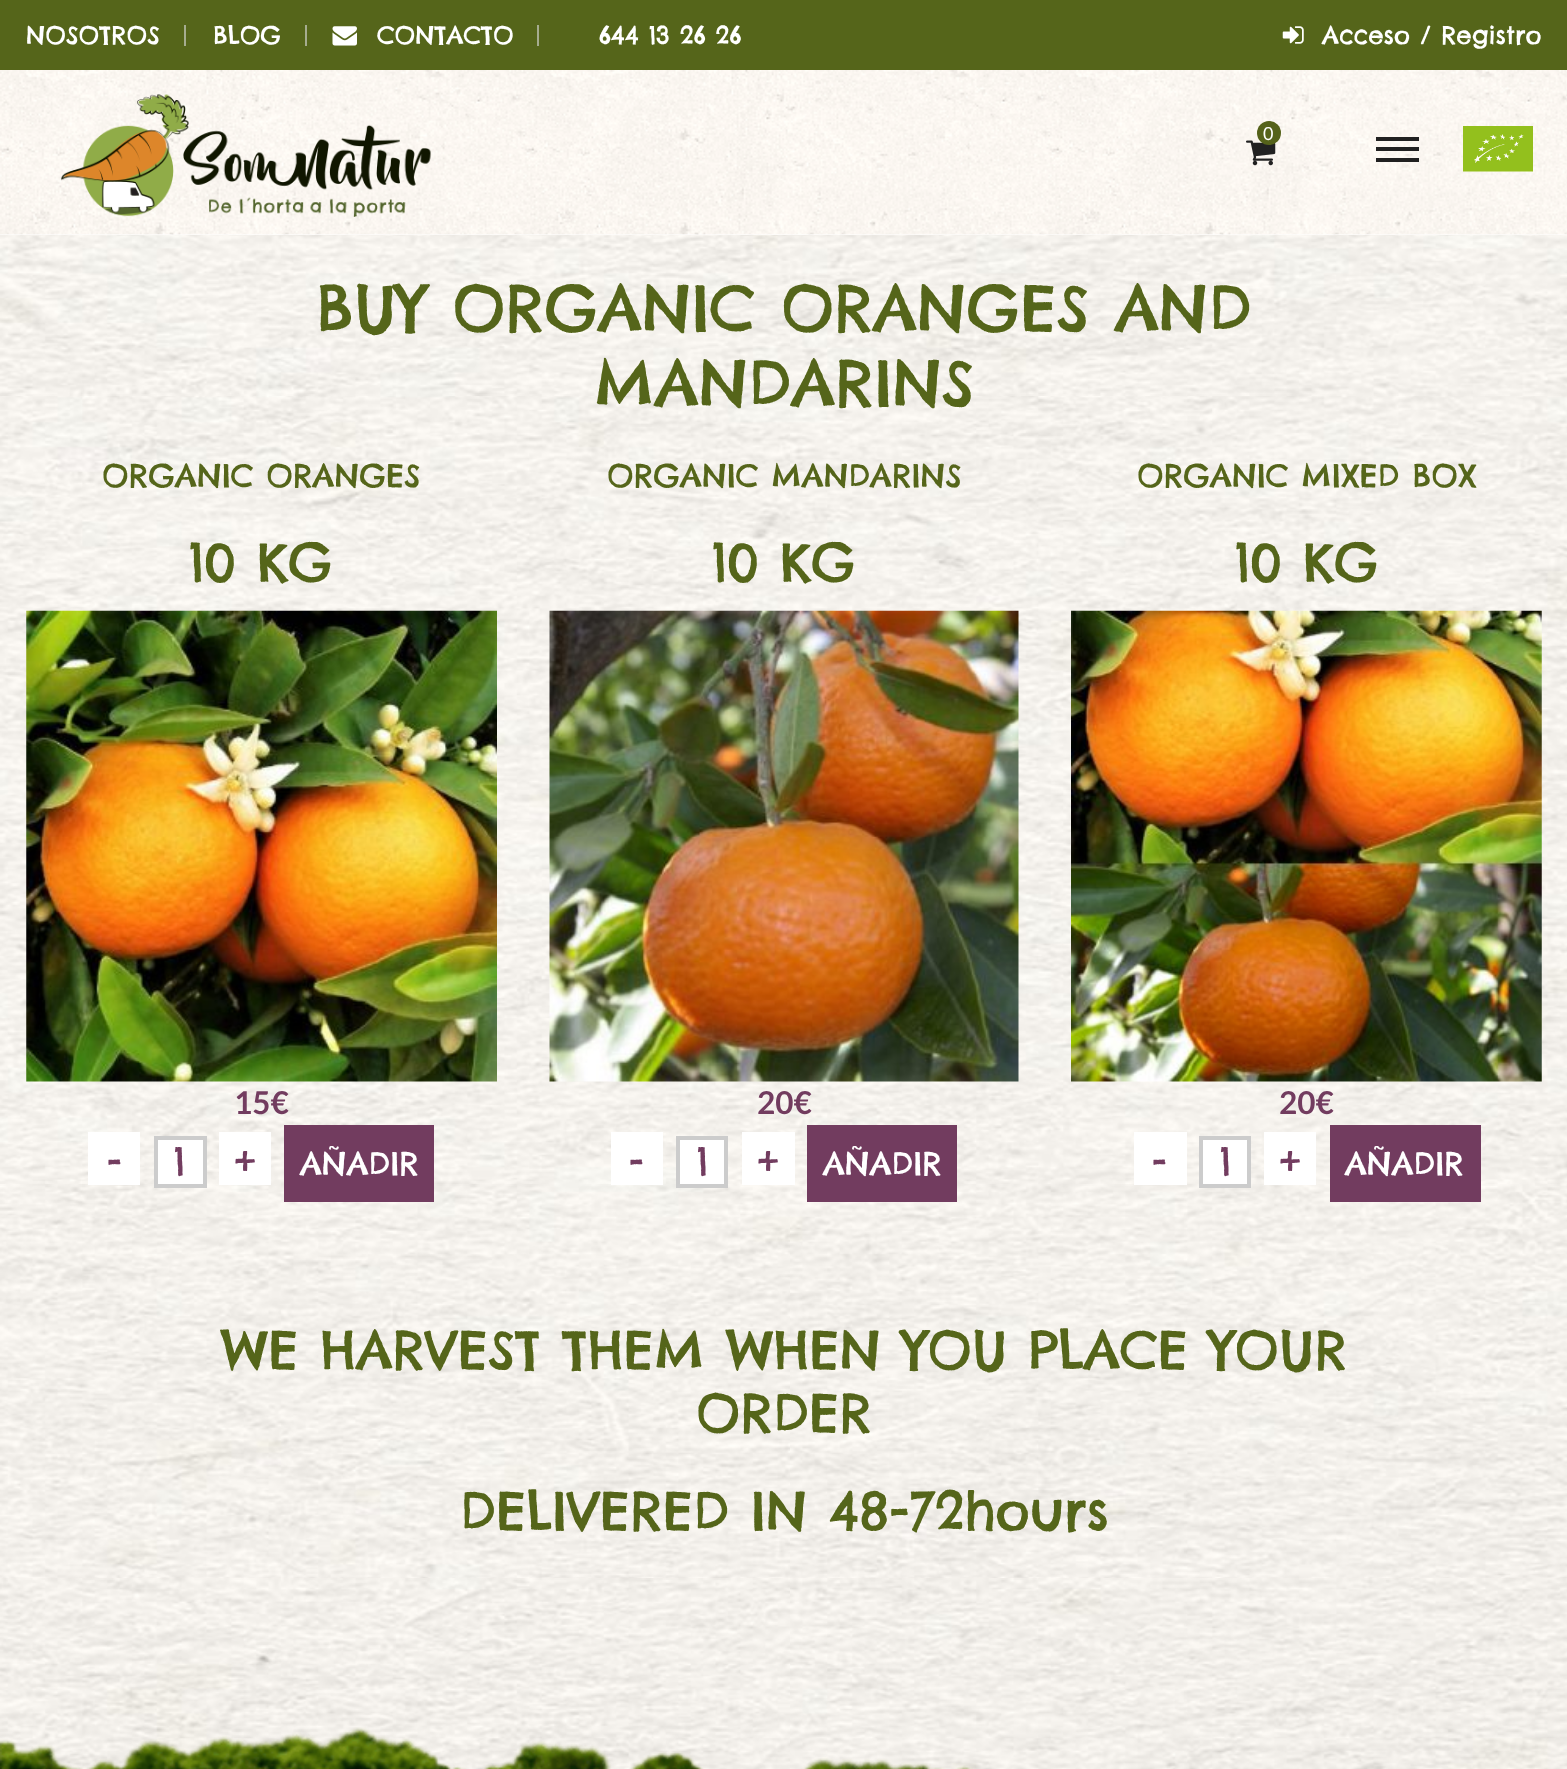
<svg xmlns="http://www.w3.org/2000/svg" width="1567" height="1769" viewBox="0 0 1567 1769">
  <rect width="100%" height="100%" fill="#fff"/>
  <image x="0" y="235" width="1567" height="1534" href="img/1.png"/>
  <path d="M0 0h1567v70H0z" fill="#55651a"/>
  <path d="M184 25h2v21H184z" fill="#a6ac90"/>
  <path d="M305 25h2v21H305z" fill="#a6ac90"/>
  <image x="332" y="26" width="25" height="20" href="img/2.png"/>
  <path d="M537 25h2v21H537z" fill="#a6ac90"/>
  <image x="1282" y="26" width="22" height="18" href="img/3.png"/>
  <image x="0" y="70" width="1567" height="165" href="img/4.png"/>
  <image x="61" y="94" width="370" height="123" href="img/5.png"/>
  <image x="1246" y="140" width="30" height="26" href="img/6.png"/>
  <circle cx="1269" cy="133" r="12" fill="#55621a"/>
  <path d="M1376 137h43v4H1376z" fill="#212121"/>
  <path d="M1376 147h43v4H1376z" fill="#212121"/>
  <path d="M1376 158h43v4H1376z" fill="#212121"/>
  <image x="1463" y="126" width="70" height="46" href="img/7.png"/>
  <image x="26" y="610" width="471" height="472" href="img/8.png"/>
  <path d="M88 1132h52v53H88z" fill="#fff"/>
  <path d="M156 1138h49v48H156z" fill="#fff" stroke="#ccc" stroke-width="4"/>
  <path d="M219 1132h52v53H219z" fill="#fff"/>
  <path d="M284 1125h150v77H284z" fill="#723c5f"/>
  <image x="549" y="610" width="470" height="472" href="img/9.png"/>
  <path d="M611 1132h52v53H611z" fill="#fff"/>
  <path d="M678 1138h48v48H678z" fill="#fff" stroke="#ccc" stroke-width="4"/>
  <path d="M742 1132h53v53H742z" fill="#fff"/>
  <path d="M807 1125h150v77H807z" fill="#723c5f"/>
  <image x="1071" y="610" width="471" height="472" href="img/10.png"/>
  <path d="M1134 1132h53v53H1134z" fill="#fff"/>
  <path d="M1201 1138h48v48H1201z" fill="#fff" stroke="#ccc" stroke-width="4"/>
  <path d="M1264 1132h52v53H1264z" fill="#fff"/>
  <path d="M1330 1125h151v77H1330z" fill="#723c5f"/>
  <image x="0" y="1727" width="973" height="42" href="img/11.png"/>
  <g font-family="Chelsea Market" font-size="24.5" fill="#fff">
    <text x="26" y="44">NOSOTROS</text>
    <text x="213" y="44">BLOG</text>
    <text x="377" y="44">CONTACTO</text>
    <text x="599" y="44">644 13 26 26</text>
    <text x="1322" y="44">Acceso / Registro</text>
  </g>
  <text x="1263" y="140" font-family="Lato" font-size="18" fill="#fff">0</text>
  <g font-family="Chelsea Market" font-size="63" fill="#55651a">
    <text x="316" y="331">BUY ORGANIC ORANGES AND</text>
    <text x="594" y="406">MANDARINS</text>
  </g>
  <text x="102" y="487" font-family="Chelsea Market" font-size="31.5" fill="#55651a">ORGANIC ORANGES</text>
  <text x="189" y="581" font-family="Chelsea Market" font-size="52.5" fill="#55651a">10 KG</text>
  <text x="234" y="1114" font-family="Lato" font-size="31.5" font-weight="bold" fill="#723c5f">15€</text>
  <g font-family="Chelsea Market" font-size="38" fill="#723c5f">
    <text x="107" y="1175">-</text>
    <text x="174" y="1175">1</text>
    <text x="234" y="1175">+</text>
  </g>
  <text x="300" y="1175" font-family="Chelsea Market" font-size="31.5" fill="#fff">AÑADIR</text>
  <text x="607" y="487" font-family="Chelsea Market" font-size="31.5" fill="#55651a">ORGANIC MANDARINS</text>
  <text x="712" y="581" font-family="Chelsea Market" font-size="52.5" fill="#55651a">10 KG</text>
  <text x="757" y="1114" font-family="Lato" font-size="31.5" font-weight="bold" fill="#723c5f">20€</text>
  <g font-family="Chelsea Market" font-size="38" fill="#723c5f">
    <text x="629" y="1175">-</text>
    <text x="697" y="1175">1</text>
    <text x="757" y="1175">+</text>
  </g>
  <text x="823" y="1175" font-family="Chelsea Market" font-size="31.5" fill="#fff">AÑADIR</text>
  <text x="1137" y="487" font-family="Chelsea Market" font-size="31.5" fill="#55651a">ORGANIC MIXED BOX</text>
  <text x="1235" y="581" font-family="Chelsea Market" font-size="52.5" fill="#55651a">10 KG</text>
  <text x="1279" y="1114" font-family="Lato" font-size="31.5" font-weight="bold" fill="#723c5f">20€</text>
  <g font-family="Chelsea Market" font-size="38" fill="#723c5f">
    <text x="1152" y="1175">-</text>
    <text x="1220" y="1175">1</text>
    <text x="1279" y="1175">+</text>
  </g>
  <text x="1345" y="1175" font-family="Chelsea Market" font-size="31.5" fill="#fff">AÑADIR</text>
  <g font-family="Chelsea Market" font-size="52.5" fill="#55651a">
    <text x="221" y="1369">WE HARVEST THEM WHEN YOU PLACE YOUR</text>
    <text x="696" y="1432">ORDER</text>
    <text x="460" y="1530">DELIVERED IN 48-72hours</text>
  </g>
</svg>
